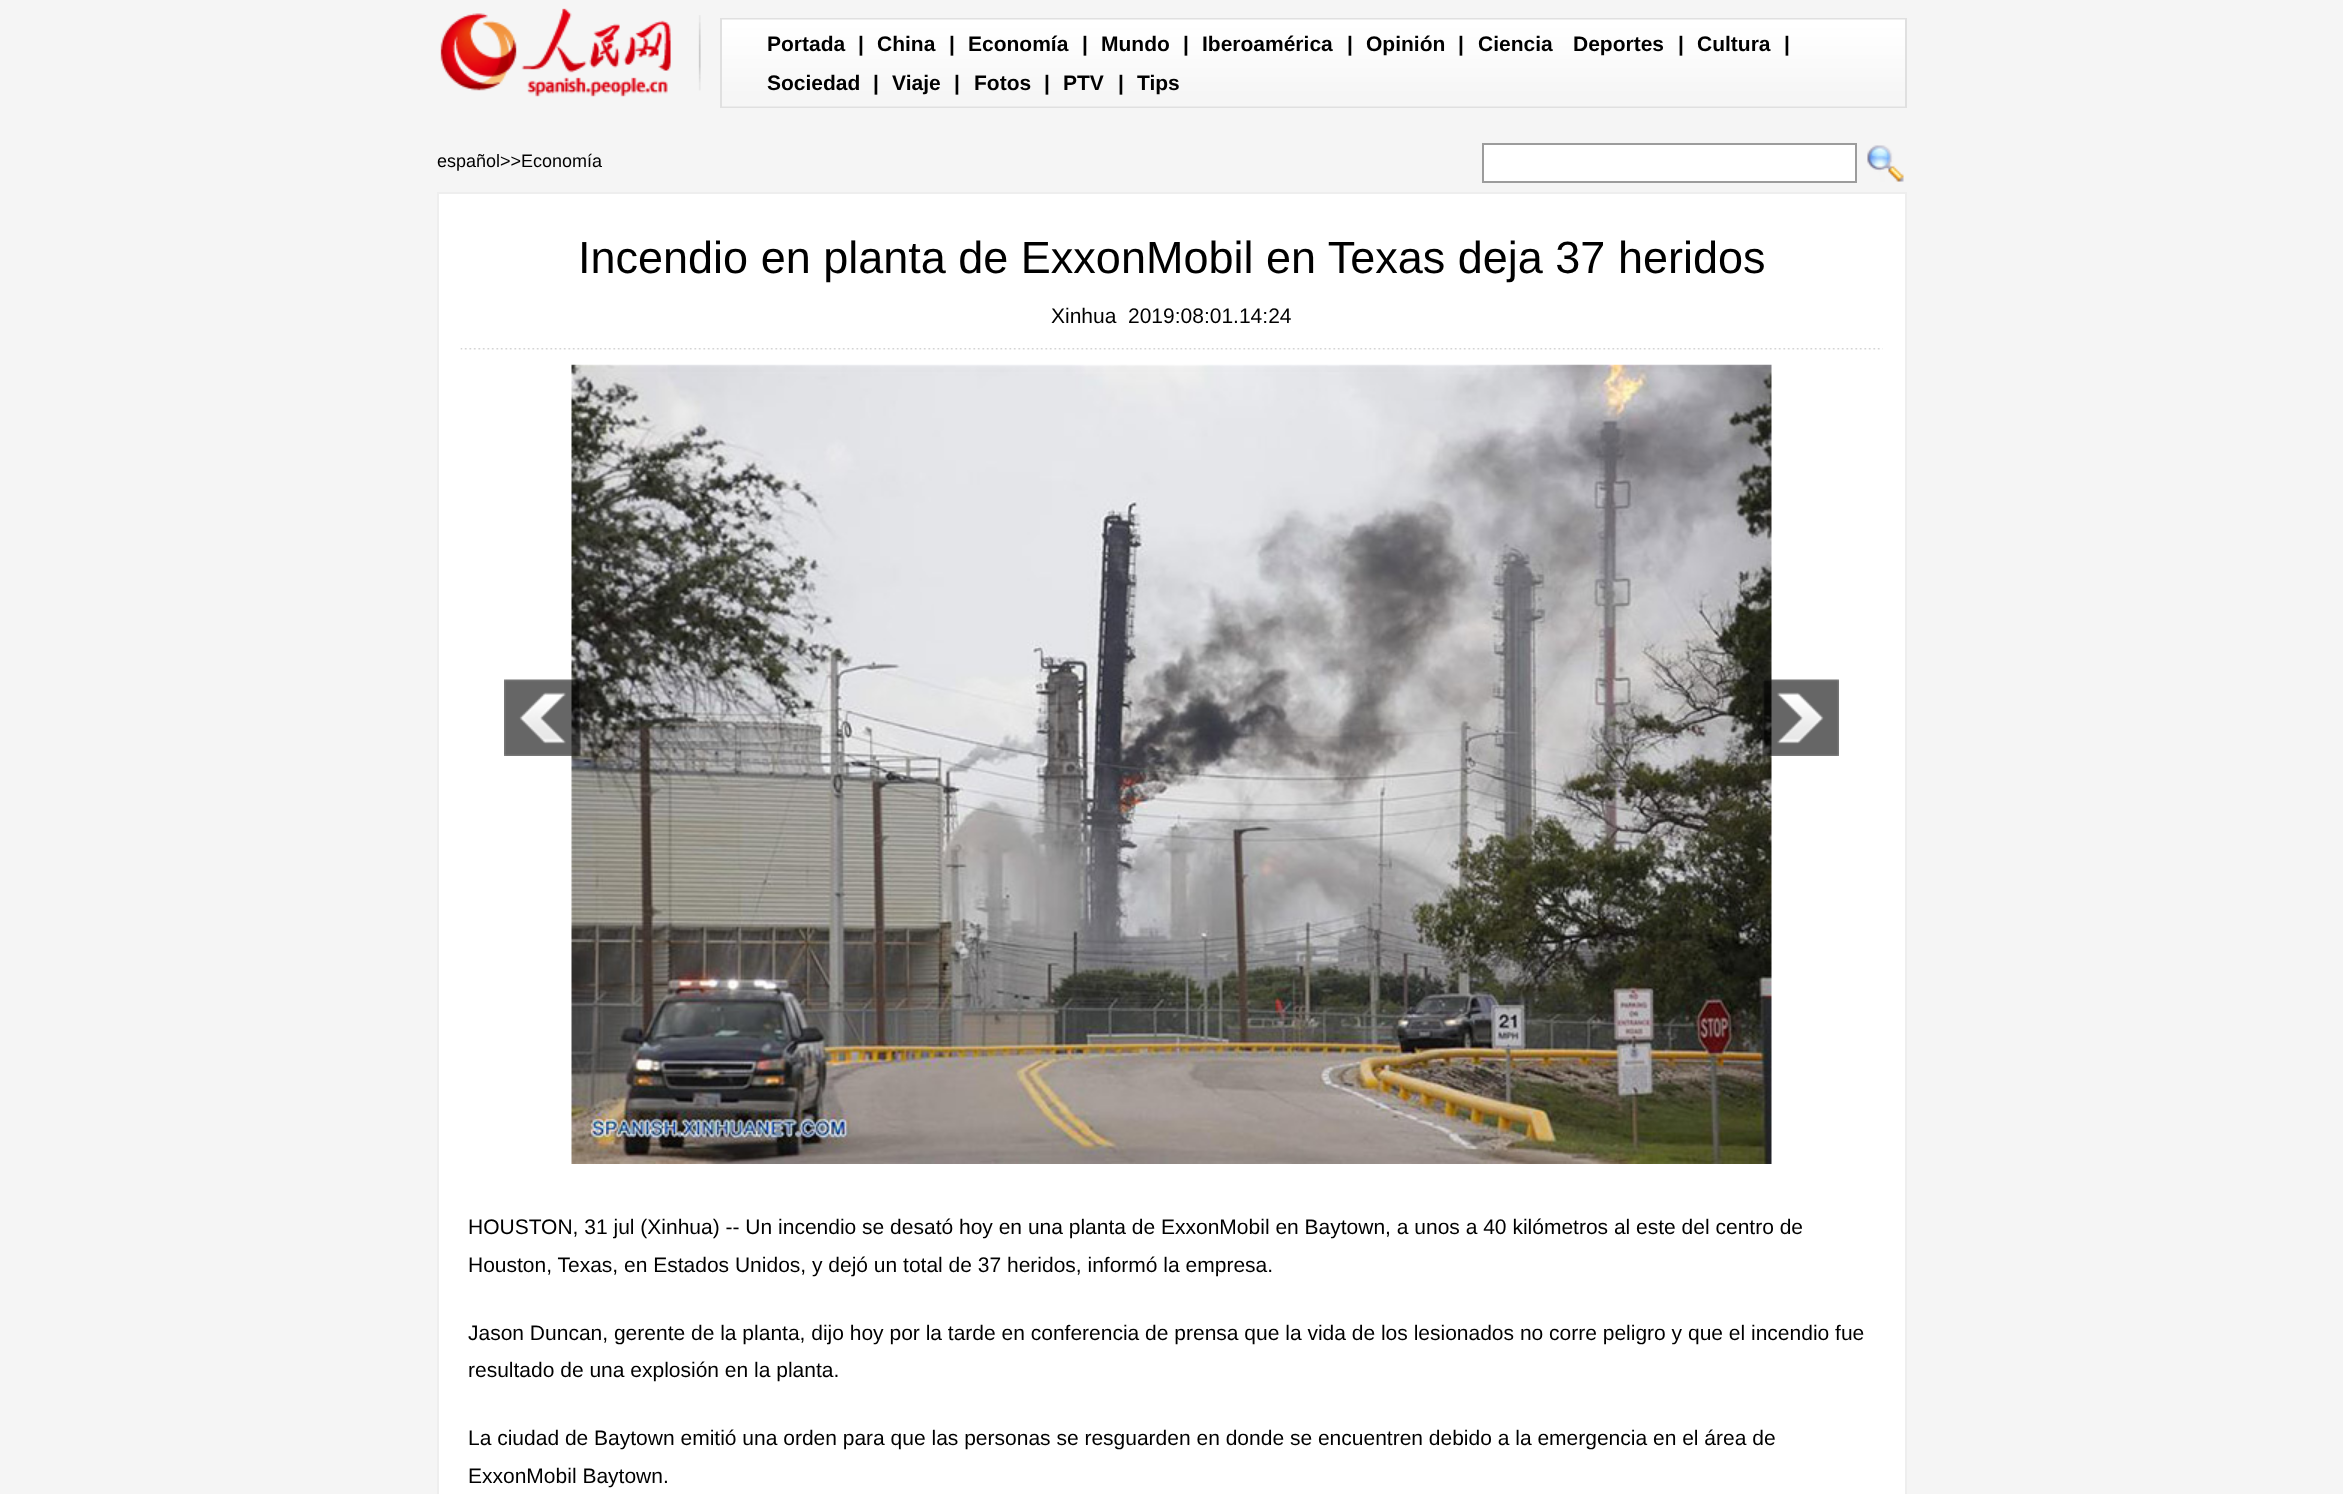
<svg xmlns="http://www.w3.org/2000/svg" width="2343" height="1494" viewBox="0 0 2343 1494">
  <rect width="100%" height="100%" fill="#f5f5f5"/>
  <image x="698" y="15" width="3" height="76" href="img/1.png"/>
  <image x="440" y="8" width="231" height="89" href="img/2.png"/>
  <image x="722" y="18" width="1183" height="90" href="img/3.png"/>
  <path d="M1905 18h2v90H1905z" fill="#e0e0e0"/>
  <path d="M720 18h2v90H720z" fill="#e0e0e0"/>
  <path d="M1483 144h373v38H1483z" fill="#fff" stroke="#9c9c9c" stroke-width="2"/>
  <image x="1867" y="145" width="37" height="37" href="img/4.png"/>
  <path d="M438 193h1468v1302H438z" fill="#fff" stroke="#eee" stroke-width="2"/>
  <image x="460" y="348" width="1423" height="2" href="img/5.png"/>
  <image x="571" y="364" width="1201" height="800" href="img/7.png"/>
  <image x="504" y="679" width="77" height="77" href="img/6.png"/>
  <image x="1762" y="679" width="77" height="77" href="img/8.png"/>
  <g font-family="Liberation Sans" font-size="21" font-weight="bold" fill="#000">
    <text x="767" y="51">Portada</text>
    <text x="858" y="51">|</text>
    <text x="877" y="51">China</text>
    <text x="949" y="51">|</text>
    <text x="968" y="51">Economía</text>
    <text x="1082" y="51">|</text>
    <text x="1101" y="51">Mundo</text>
    <text x="1183" y="51">|</text>
    <text x="1202" y="51">Iberoamérica</text>
    <text x="1347" y="51">|</text>
    <text x="1366" y="51">Opinión</text>
    <text x="1458" y="51">|</text>
    <text x="1478" y="51">Ciencia</text>
    <text x="1573" y="51">Deportes</text>
    <text x="1678" y="51">|</text>
    <text x="1697" y="51">Cultura</text>
    <text x="1784" y="51">|</text>
    <text x="767" y="90">Sociedad</text>
    <text x="873" y="90">|</text>
    <text x="892" y="90">Viaje</text>
    <text x="954" y="90">|</text>
    <text x="974" y="90">Fotos</text>
    <text x="1044" y="90">|</text>
    <text x="1063" y="90">PTV</text>
    <text x="1118" y="90">|</text>
    <text x="1137" y="90">Tips</text>
  </g>
  <text x="437" y="167" font-family="Liberation Sans" font-size="18" fill="#000">español&gt;&gt;Economía</text>
  <text x="578" y="273" font-family="Liberation Sans" font-size="45" fill="#000">Incendio en planta de ExxonMobil en Texas deja 37 heridos</text>
  <g font-family="Liberation Sans" font-size="21" fill="#000">
    <text x="1051" y="323">Xinhua</text>
    <text x="1128" y="323">2019:08:01.14:24</text>
    <text x="468" y="1234">HOUSTON, 31 jul (Xinhua) -- Un incendio se desató hoy en una planta de ExxonMobil en Baytown, a unos a 40 kilómetros al este del centro de</text>
    <text x="468" y="1272">Houston, Texas, en Estados Unidos, y dejó un total de 37 heridos, informó la empresa.</text>
    <text x="468" y="1340">Jason Duncan, gerente de la planta, dijo hoy por la tarde en conferencia de prensa que la vida de los lesionados no corre peligro y que el incendio fue</text>
    <text x="468" y="1377">resultado de una explosión en la planta.</text>
    <text x="468" y="1445">La ciudad de Baytown emitió una orden para que las personas se resguarden en donde se encuentren debido a la emergencia en el área de</text>
    <text x="468" y="1483">ExxonMobil Baytown.</text>
  </g>
</svg>
